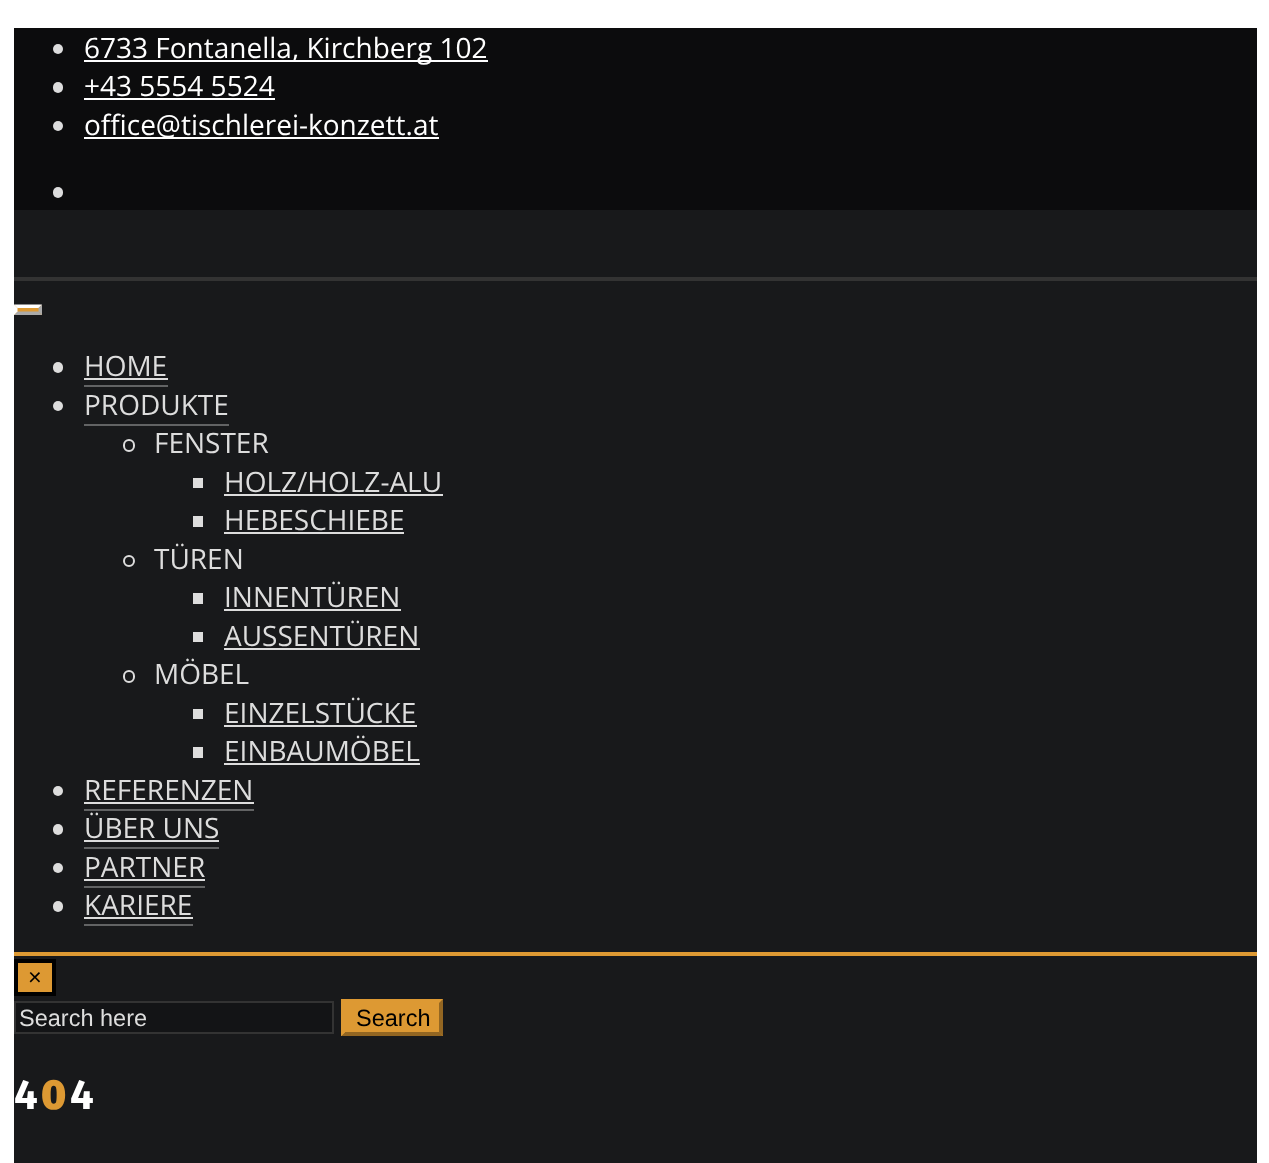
<svg xmlns="http://www.w3.org/2000/svg" width="1269" height="1163" viewBox="0 0 1269 1163">
  <rect width="100%" height="100%" fill="#fff"/>
  <path d="M14 210h1243v953H14z" fill="#18191b"/>
  <path d="M14 28h1243v182H14z" fill="#0c0c0d"/>
  <circle cx="58" cy="49" r="5" fill="#ddd"/>
  <path d="M84 60h404v2H84z" fill="#fff"/>
  <rect x="53" y="82" width="10" height="11" rx="5" fill="#ddd"/>
  <path d="M84 98h191v2H84z" fill="#fff"/>
  <circle cx="58" cy="126" r="5" fill="#ddd"/>
  <path d="M84 137h355v2H84z" fill="#fff"/>
  <rect x="53" y="187" width="10" height="11" rx="5" fill="#ddd"/>
  <path d="M14 277h1243v4H14z" fill="#333"/>
  <path d="M14 952h1243v4H14z" fill="#d93"/>
  <path d="M14 305h28v10H14z" fill="#d93"/>
  <path d="M14 304.5H42L38.5 308H17.5Z" fill="#fff"/>
  <path d="M42 304.5V315L38.5 311.5V308Z" fill="#aaa"/>
  <path d="M42 315H14L17.5 311.5H38.5Z" fill="#aaa"/>
  <path d="M14 315V304.5L17.5 308V311.5Z" fill="#fff"/>
  <rect x="53" y="362" width="10" height="11" rx="5" fill="#ddd"/>
  <path d="M84 385h84v2H84z" fill="#626364"/>
  <path d="M84 378h84v2H84z" fill="#ddd"/>
  <circle cx="58" cy="406" r="5" fill="#ddd"/>
  <path d="M84 424h145v2H84z" fill="#626364"/>
  <rect x="124" y="440" width="10" height="11" rx="5" fill="none" stroke="#ddd" stroke-width="2"/>
  <path d="M193 478h10v10H193z" fill="#ddd"/>
  <path d="M224 494h219v2H224z" fill="#ddd"/>
  <path d="M193 516h10v11H193z" fill="#ddd"/>
  <path d="M224 532h180v2H224z" fill="#ddd"/>
  <circle cx="129" cy="561" r="5" fill="none" stroke="#ddd" stroke-width="2"/>
  <path d="M193 593h10v11H193z" fill="#ddd"/>
  <path d="M224 609h177v2H224z" fill="#ddd"/>
  <path d="M193 632h10v10H193z" fill="#ddd"/>
  <path d="M224 648h196v2H224z" fill="#ddd"/>
  <rect x="124" y="671" width="10" height="11" rx="5" fill="none" stroke="#ddd" stroke-width="2"/>
  <path d="M193 709h10v10H193z" fill="#ddd"/>
  <path d="M224 725h193v2H224z" fill="#ddd"/>
  <path d="M193 747h10v11H193z" fill="#ddd"/>
  <path d="M224 763h196v2H224z" fill="#ddd"/>
  <circle cx="58" cy="791" r="5" fill="#ddd"/>
  <path d="M84 809h170v2H84z" fill="#626364"/>
  <path d="M84 802h170v2H84z" fill="#ddd"/>
  <rect x="53" y="824" width="10" height="11" rx="5" fill="#ddd"/>
  <path d="M84 847h135v2H84z" fill="#626364"/>
  <path d="M84 840h135v2H84z" fill="#ddd"/>
  <circle cx="58" cy="868" r="5" fill="#ddd"/>
  <path d="M84 886h121v2H84z" fill="#626364"/>
  <path d="M84 879h121v2H84z" fill="#ddd"/>
  <rect x="53" y="901" width="10" height="11" rx="5" fill="#ddd"/>
  <path d="M84 924h109v2H84z" fill="#626364"/>
  <path d="M84 917h109v2H84z" fill="#ddd"/>
  <path d="M16 961h38v33H16z" fill="#d93" stroke="#000" stroke-width="4"/>
  <path d="M15 1002h318v31H15z" fill="#131416" stroke="#333" stroke-width="2"/>
  <path d="M341 999h102v37H341z" fill="#d93"/>
  <path d="M443 999V1036L439 1032.5V1003Z" fill="#936622"/>
  <path d="M443 1036H341L345 1032H439Z" fill="#936622"/>
  <path d="M341 1036V999L345 1003V1032.5Z" fill="#d93"/>
  <g font-family="Open Sans" font-size="28" fill="#fff">
    <text x="84" y="58">6733 Fontanella, Kirchberg 102</text>
    <text x="84" y="96">+43 5554 5524</text>
    <text x="84" y="135">office@tischlerei-konzett.at</text>
  </g>
  <g font-family="Open Sans" font-size="28" fill="#ddd">
    <text x="84" y="376">HOME</text>
    <text x="84" y="415">PRODUKTE</text>
    <text x="154" y="453">FENSTER</text>
    <text x="224" y="492">HOLZ/HOLZ-ALU</text>
    <text x="224" y="530">HEBESCHIEBE</text>
    <text x="154" y="569">TÜREN</text>
    <text x="224" y="607">INNENTÜREN</text>
    <text x="224" y="646">AUSSENTÜREN</text>
    <text x="154" y="684">MÖBEL</text>
    <text x="224" y="723">EINZELSTÜCKE</text>
    <text x="224" y="761">EINBAUMÖBEL</text>
    <text x="84" y="800">REFERENZEN</text>
    <text x="84" y="838">ÜBER UNS</text>
    <text x="84" y="877">PARTNER</text>
    <text x="84" y="915">KARIERE</text>
  </g>
  <text x="28" y="985" font-family="Liberation Sans" font-size="23.5" fill="#000">×</text>
  <text x="19" y="1026" font-family="Liberation Sans" font-size="23.5" fill="#ddd">Search here</text>
  <text x="356" y="1026" font-family="Liberation Sans" font-size="23.5" fill="#000">Search</text>
  <text x="14" y="1109" font-family="Fira Sans" font-size="42" font-weight="bold" letter-spacing="4" fill="#fff">4</text>
  <text x="41" y="1109" font-family="Fira Sans" font-size="42" font-weight="900" letter-spacing="4" fill="#d93">0</text>
  <text x="70" y="1109" font-family="Fira Sans" font-size="42" font-weight="bold" letter-spacing="4" fill="#fff">4</text>
</svg>
